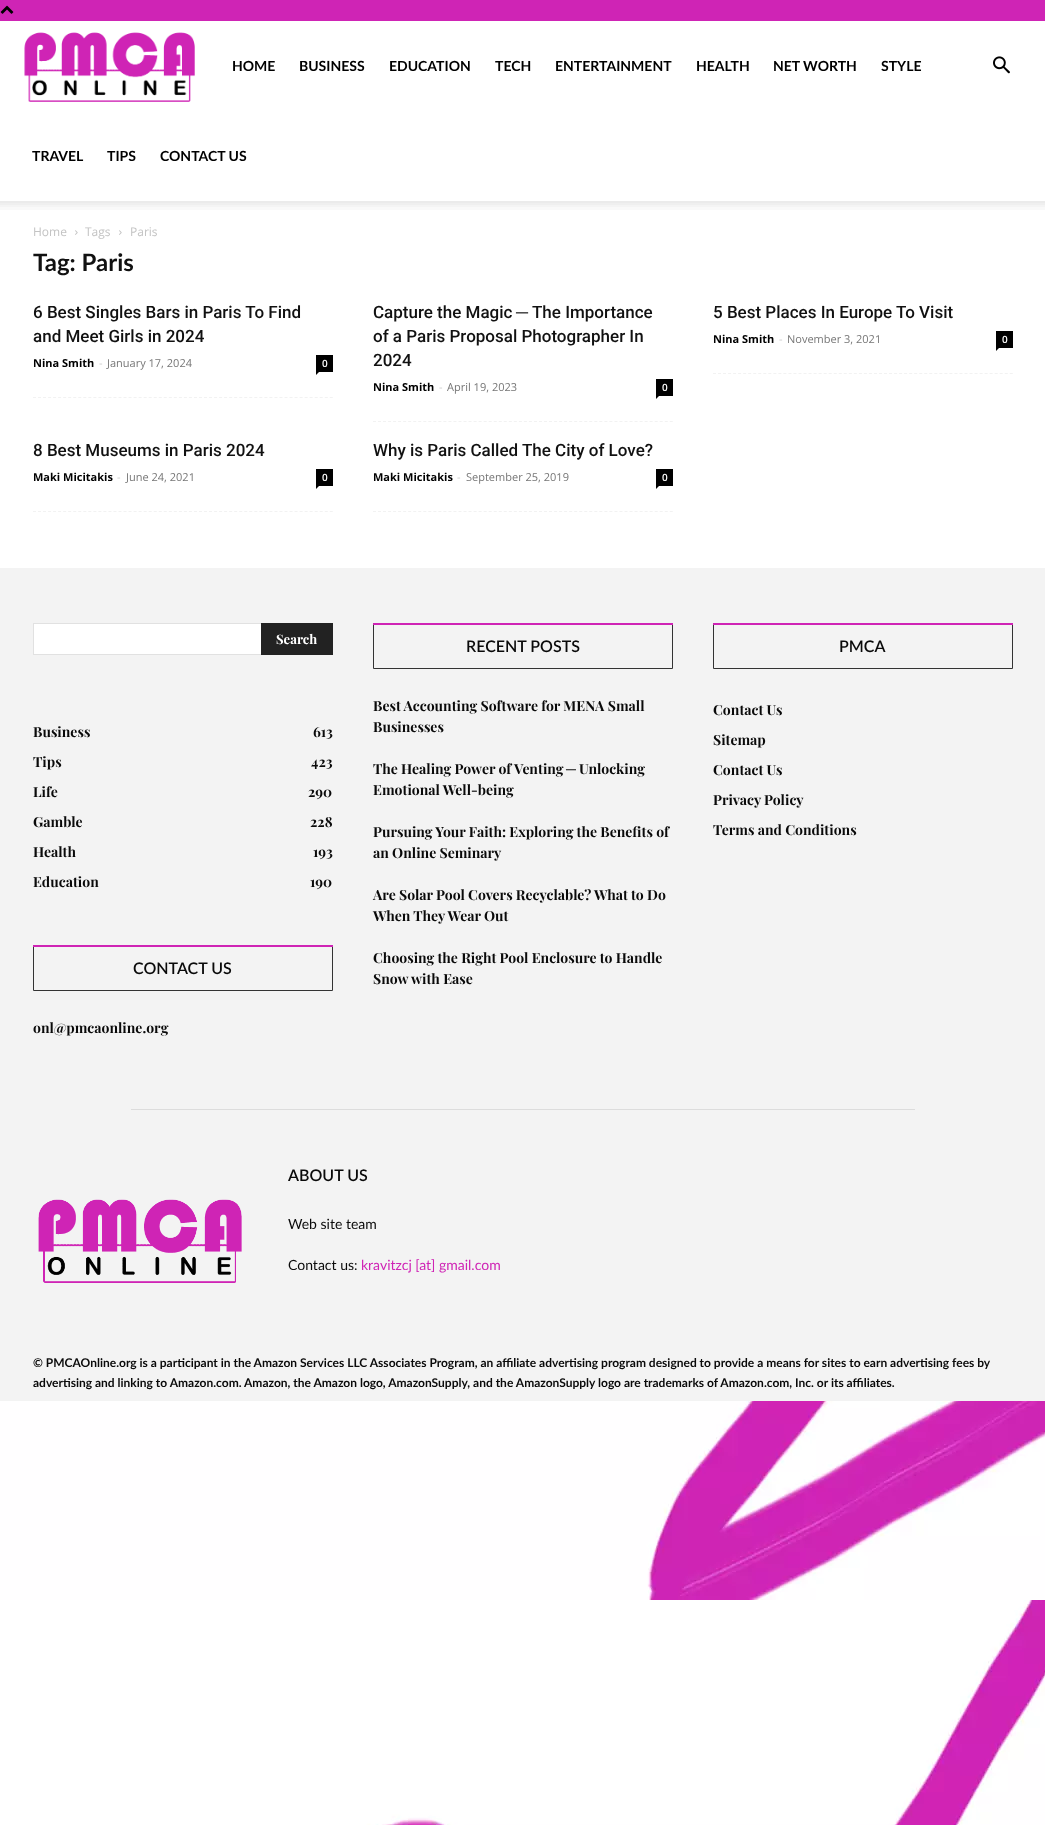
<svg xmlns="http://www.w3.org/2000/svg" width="1045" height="1825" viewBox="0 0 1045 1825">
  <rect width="100%" height="100%" fill="#fff"/>
  <image x="0" y="1401" width="1045" height="424" href="img/1.png"/>
  <path d="M0 0h1045v21H0z" fill="#cf24b5"/>
  <image x="0" y="5" width="14" height="9" href="img/2.png"/>
  <image x="24" y="32" width="171" height="70" href="img/3.png"/>
  <image x="993" y="56" width="17" height="18" href="img/4.png"/>
  <image x="0" y="201" width="1045" height="9" href="img/5.png"/>
  <image x="75" y="230" width="3" height="5" href="img/6.png"/>
  <image x="119" y="230" width="3" height="5" href="img/6.png"/>
  <path d="M33 397.5H333" fill="none" stroke="#f2f2f2" stroke-dasharray="3 2.03"/>
  <path d="M316 355h17v17H316z" fill="#000"/>
  <path d="M316 372H319L316 375Z" fill="#000"/>
  <path d="M373 421.5H673" fill="none" stroke="#f2f2f2" stroke-dasharray="3 2.03"/>
  <path d="M656 379h17v17H656z" fill="#000"/>
  <path d="M656 396H659L656 399Z" fill="#000"/>
  <path d="M713 373.5H1013" fill="none" stroke="#f2f2f2" stroke-dasharray="3 2.03"/>
  <path d="M996 331h17v17H996z" fill="#000"/>
  <path d="M996 348H999L996 351Z" fill="#000"/>
  <path d="M33 511.5H333" fill="none" stroke="#f2f2f2" stroke-dasharray="3 2.03"/>
  <path d="M316 469h17v17H316z" fill="#000"/>
  <path d="M316 486H319L316 489Z" fill="#000"/>
  <path d="M373 511.5H673" fill="none" stroke="#f2f2f2" stroke-dasharray="3 2.03"/>
  <path d="M656 469h17v17H656z" fill="#000"/>
  <path d="M656 486H659L656 489Z" fill="#000"/>
  <path d="M0 568h1045v833H0z" fill="#f3f3f3"/>
  <path d="M34 624h227v30H34z" fill="#fff"/>
  <path d="M33 623h228v1H33z" fill="#e1e1e1"/>
  <path d="M33 654h228v1H33z" fill="#e1e1e1"/>
  <path d="M33 623h1v32H33z" fill="#e1e1e1"/>
  <path d="M261 623h72v32H261z" fill="#222"/>
  <path d="M33.5 945.5h299v45H33.5z" fill="none" stroke="#333"/>
  <path d="M33 945h300v2H33z" fill="#cf24b5"/>
  <path d="M373.5 623.5h299v45H373.5z" fill="none" stroke="#333"/>
  <path d="M373 623h300v2H373z" fill="#cf24b5"/>
  <path d="M713.5 623.5h299v45H713.5z" fill="none" stroke="#333"/>
  <path d="M713 623h300v2H713z" fill="#cf24b5"/>
  <path d="M131 1109h784v1H131z" fill="#dcdcdc"/>
  <image x="38" y="1199" width="204" height="84" href="img/7.png"/>
  <g font-family="Lato" font-size="14" font-weight="bold" fill="#000">
    <text x="232" y="71">HOME</text>
    <text x="299" y="71">BUSINESS</text>
    <text x="389" y="71">EDUCATION</text>
    <text x="495" y="71">TECH</text>
    <text x="555" y="71">ENTERTAINMENT</text>
    <text x="696" y="71">HEALTH</text>
    <text x="773" y="71">NET WORTH</text>
    <text x="881" y="71">STYLE</text>
    <text x="32" y="161">TRAVEL</text>
    <text x="107" y="161">TIPS</text>
    <text x="160" y="161">CONTACT US</text>
  </g>
  <g font-family="Open Sans" font-size="12" fill="#c3c3c3">
    <text x="33" y="236">Home</text>
    <text x="85" y="236">Tags</text>
    <text x="130" y="236">Paris</text>
  </g>
  <text x="33" y="271" font-family="Lato" font-size="24" font-weight="bold" fill="#111">Tag: Paris</text>
  <g font-family="Roboto" font-size="17" font-weight="500" fill="#111">
    <text x="33" y="318">6 Best Singles Bars in Paris To Find</text>
    <text x="33" y="342">and Meet Girls in 2024</text>
  </g>
  <text x="33" y="367" font-family="Open Sans" font-size="11" font-weight="bold" fill="#000">Nina Smith</text>
  <text x="99" y="367" font-family="Open Sans" font-size="11" fill="#ccc">-</text>
  <text x="107" y="367" font-family="Open Sans" font-size="11" fill="#767676">January 17, 2024</text>
  <text x="322" y="367" font-family="Open Sans" font-size="10" font-weight="600" fill="#fff">0</text>
  <text x="373" y="318" font-family="Roboto" font-size="17" font-weight="500" fill="#111">Capture the Magic</text>
  <text x="516" y="318" font-family="Liberation Sans" font-size="17" fill="#111">─</text>
  <g font-family="Roboto" font-size="17" font-weight="500" fill="#111">
    <text x="532" y="318">The Importance</text>
    <text x="373" y="342">of a Paris Proposal Photographer In</text>
    <text x="373" y="366">2024</text>
  </g>
  <text x="373" y="391" font-family="Open Sans" font-size="11" font-weight="bold" fill="#000">Nina Smith</text>
  <text x="439" y="391" font-family="Open Sans" font-size="11" fill="#ccc">-</text>
  <text x="447" y="391" font-family="Open Sans" font-size="11" fill="#767676">April 19, 2023</text>
  <text x="662" y="391" font-family="Open Sans" font-size="10" font-weight="600" fill="#fff">0</text>
  <text x="713" y="318" font-family="Roboto" font-size="17" font-weight="500" fill="#111">5 Best Places In Europe To Visit</text>
  <text x="713" y="343" font-family="Open Sans" font-size="11" font-weight="bold" fill="#000">Nina Smith</text>
  <text x="779" y="343" font-family="Open Sans" font-size="11" fill="#ccc">-</text>
  <text x="787" y="343" font-family="Open Sans" font-size="11" fill="#767676">November 3, 2021</text>
  <text x="1002" y="343" font-family="Open Sans" font-size="10" font-weight="600" fill="#fff">0</text>
  <text x="33" y="456" font-family="Roboto" font-size="17" font-weight="500" fill="#111">8 Best Museums in Paris 2024</text>
  <text x="33" y="481" font-family="Open Sans" font-size="11" font-weight="bold" fill="#000">Maki Micitakis</text>
  <text x="117" y="481" font-family="Open Sans" font-size="11" fill="#ccc">-</text>
  <text x="126" y="481" font-family="Open Sans" font-size="11" fill="#767676">June 24, 2021</text>
  <text x="322" y="481" font-family="Open Sans" font-size="10" font-weight="600" fill="#fff">0</text>
  <text x="373" y="456" font-family="Roboto" font-size="17" font-weight="500" fill="#111">Why is Paris Called The City of Love?</text>
  <text x="373" y="481" font-family="Open Sans" font-size="11" font-weight="bold" fill="#000">Maki Micitakis</text>
  <text x="457" y="481" font-family="Open Sans" font-size="11" fill="#ccc">-</text>
  <text x="466" y="481" font-family="Open Sans" font-size="11" fill="#767676">September 25, 2019</text>
  <text x="662" y="481" font-family="Open Sans" font-size="10" font-weight="600" fill="#fff">0</text>
  <text x="276" y="644" font-family="Playfair Display" font-size="13" font-weight="bold" fill="#fff">Search</text>
  <g font-family="Playfair Display" font-size="14" font-weight="bold" fill="#0a0a0a">
    <text x="33" y="737">Business</text>
    <text x="313" y="737">613</text>
    <text x="33" y="767">Tips</text>
    <text x="311" y="767">423</text>
    <text x="33" y="797">Life</text>
    <text x="308" y="797">290</text>
    <text x="33" y="827">Gamble</text>
    <text x="310" y="827">228</text>
    <text x="33" y="857">Health</text>
    <text x="313" y="857">193</text>
    <text x="33" y="887">Education</text>
    <text x="310" y="887">190</text>
  </g>
  <text x="133" y="974" font-family="Lato" font-size="16" font-weight="600" fill="#0a0a0a">CONTACT US</text>
  <text x="33" y="1033" font-family="Playfair Display" font-size="14" font-weight="bold" fill="#0a0a0a">onl@pmcaonline.org</text>
  <text x="466" y="652" font-family="Lato" font-size="16" font-weight="600" fill="#0a0a0a">RECENT POSTS</text>
  <g font-family="Playfair Display" font-size="14" font-weight="bold" fill="#0a0a0a">
    <text x="373" y="711">Best Accounting Software for MENA Small</text>
    <text x="373" y="732">Businesses</text>
    <text x="373" y="774">The Healing Power of Venting</text>
  </g>
  <text x="566" y="774" font-family="Liberation Serif" font-size="14" font-weight="bold" fill="#0a0a0a">─</text>
  <g font-family="Playfair Display" font-size="14" font-weight="bold" fill="#0a0a0a">
    <text x="579" y="774">Unlocking</text>
    <text x="373" y="795">Emotional Well-being</text>
    <text x="373" y="837">Pursuing Your Faith: Exploring the Benefits of</text>
    <text x="373" y="858">an Online Seminary</text>
    <text x="373" y="900">Are Solar Pool Covers Recyclable? What to Do</text>
    <text x="373" y="921">When They Wear Out</text>
    <text x="373" y="963">Choosing the Right Pool Enclosure to Handle</text>
    <text x="373" y="984">Snow with Ease</text>
  </g>
  <text x="839" y="652" font-family="Lato" font-size="16" font-weight="600" fill="#0a0a0a">PMCA</text>
  <g font-family="Playfair Display" font-size="14" font-weight="bold" fill="#0a0a0a">
    <text x="713" y="715">Contact Us</text>
    <text x="713" y="745">Sitemap</text>
    <text x="713" y="775">Contact Us</text>
    <text x="713" y="805">Privacy Policy</text>
    <text x="713" y="835">Terms and Conditions</text>
  </g>
  <text x="288" y="1181" font-family="Lato" font-size="16" font-weight="600" fill="#0a0a0a">ABOUT US</text>
  <g font-family="Lato" font-size="14" fill="#0a0a0a">
    <text x="288" y="1229">Web site team</text>
    <text x="288" y="1270">Contact us:</text>
  </g>
  <text x="361" y="1270" font-family="Lato" font-size="14" fill="#cf24b5">kravitzcj [at] gmail.com</text>
  <g font-family="Lato" font-size="12" font-weight="bold" fill="#0a0a0a">
    <text x="33" y="1367">© PMCAOnline.org is a participant in the Amazon Services LLC Associates Program, an affiliate advertising program designed to provide a means for sites to earn advertising fees by</text>
    <text x="33" y="1387">advertising and linking to Amazon.com. Amazon, the Amazon logo, AmazonSupply, and the AmazonSupply logo are trademarks of Amazon.com, Inc. or its affiliates.</text>
  </g>
</svg>
